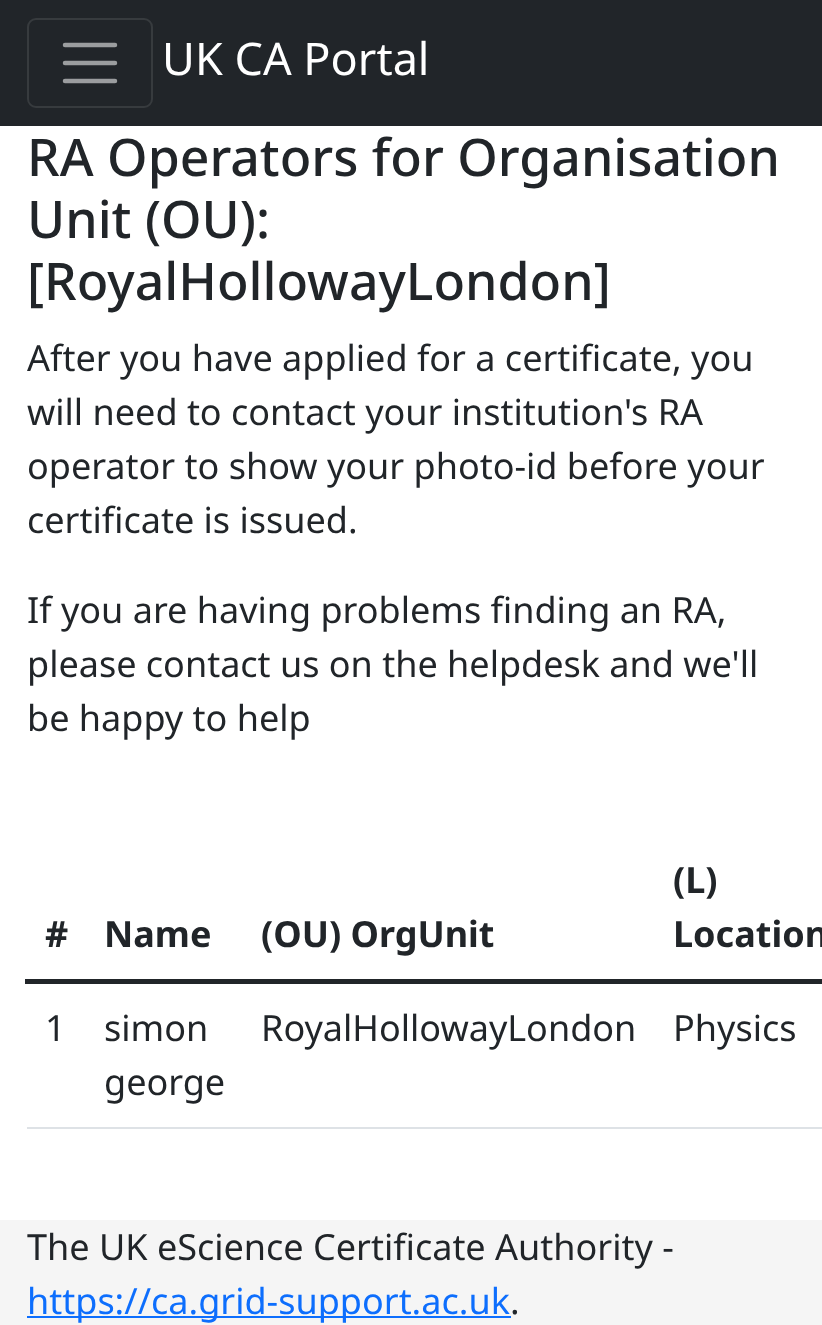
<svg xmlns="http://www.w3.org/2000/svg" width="822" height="1325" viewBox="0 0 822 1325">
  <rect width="100%" height="100%" fill="#fff"/>
  <path d="M0 0h822v126H0z" fill="#212529"/>
  <rect x="28" y="19" width="124" height="88" rx="8" fill="none" stroke="#373b3e" stroke-width="2"/>
  <path d="M65 45H115M65 63H115M65 81H115" fill="none" stroke="#9b9d9f" stroke-width="4.5" stroke-linecap="round"/>
  <path d="M25 979h797v5H25z" fill="#212529"/>
  <path d="M27 1127h795v2H27z" fill="#dee2e6"/>
  <path d="M0 1220h822v105H0z" fill="#f5f5f5"/>
  <path d="M27 1316h484v2H27z" fill="#0d6efd"/>
  <text x="162" y="75" font-family="Noto Sans" font-size="45" fill="#fff">UK CA Portal</text>
  <g font-family="Noto Sans" font-size="51.75" font-weight="500" fill="#212529">
    <text x="27" y="176">RA Operators for Organisation</text>
    <text x="27" y="238">Unit (OU):</text>
    <text x="27" y="300">[RoyalHollowayLondon]</text>
  </g>
  <g font-family="Noto Sans" font-size="36" fill="#212529">
    <text x="27" y="371">After you have applied for a certificate, you</text>
    <text x="27" y="425">will need to contact your institution's RA</text>
    <text x="27" y="479">operator to show your photo-id before your</text>
    <text x="27" y="533">certificate is issued.</text>
    <text x="27" y="623">If you are having problems finding an RA,</text>
    <text x="27" y="677">please contact us on the helpdesk and we'll</text>
    <text x="27" y="731">be happy to help</text>
  </g>
  <g font-family="Noto Sans" font-size="36" font-weight="bold" fill="#212529">
    <text x="45" y="947">#</text>
    <text x="104" y="947">Name</text>
    <text x="261" y="947">(OU) OrgUnit</text>
    <text x="673" y="893">(L)</text>
    <text x="673" y="947">Location</text>
  </g>
  <g font-family="Noto Sans" font-size="36" fill="#212529">
    <text x="45" y="1041">1</text>
    <text x="104" y="1041">simon</text>
    <text x="104" y="1095">george</text>
    <text x="261" y="1041">RoyalHollowayLondon</text>
    <text x="673" y="1041">Physics</text>
    <text x="27" y="1260">The UK eScience Certificate Authority -</text>
  </g>
  <text x="27" y="1314" font-family="Noto Sans" font-size="36" fill="#0d6efd">https://ca.grid-support.ac.uk</text>
  <text x="510" y="1314" font-family="Noto Sans" font-size="36" fill="#212529">.</text>
</svg>
